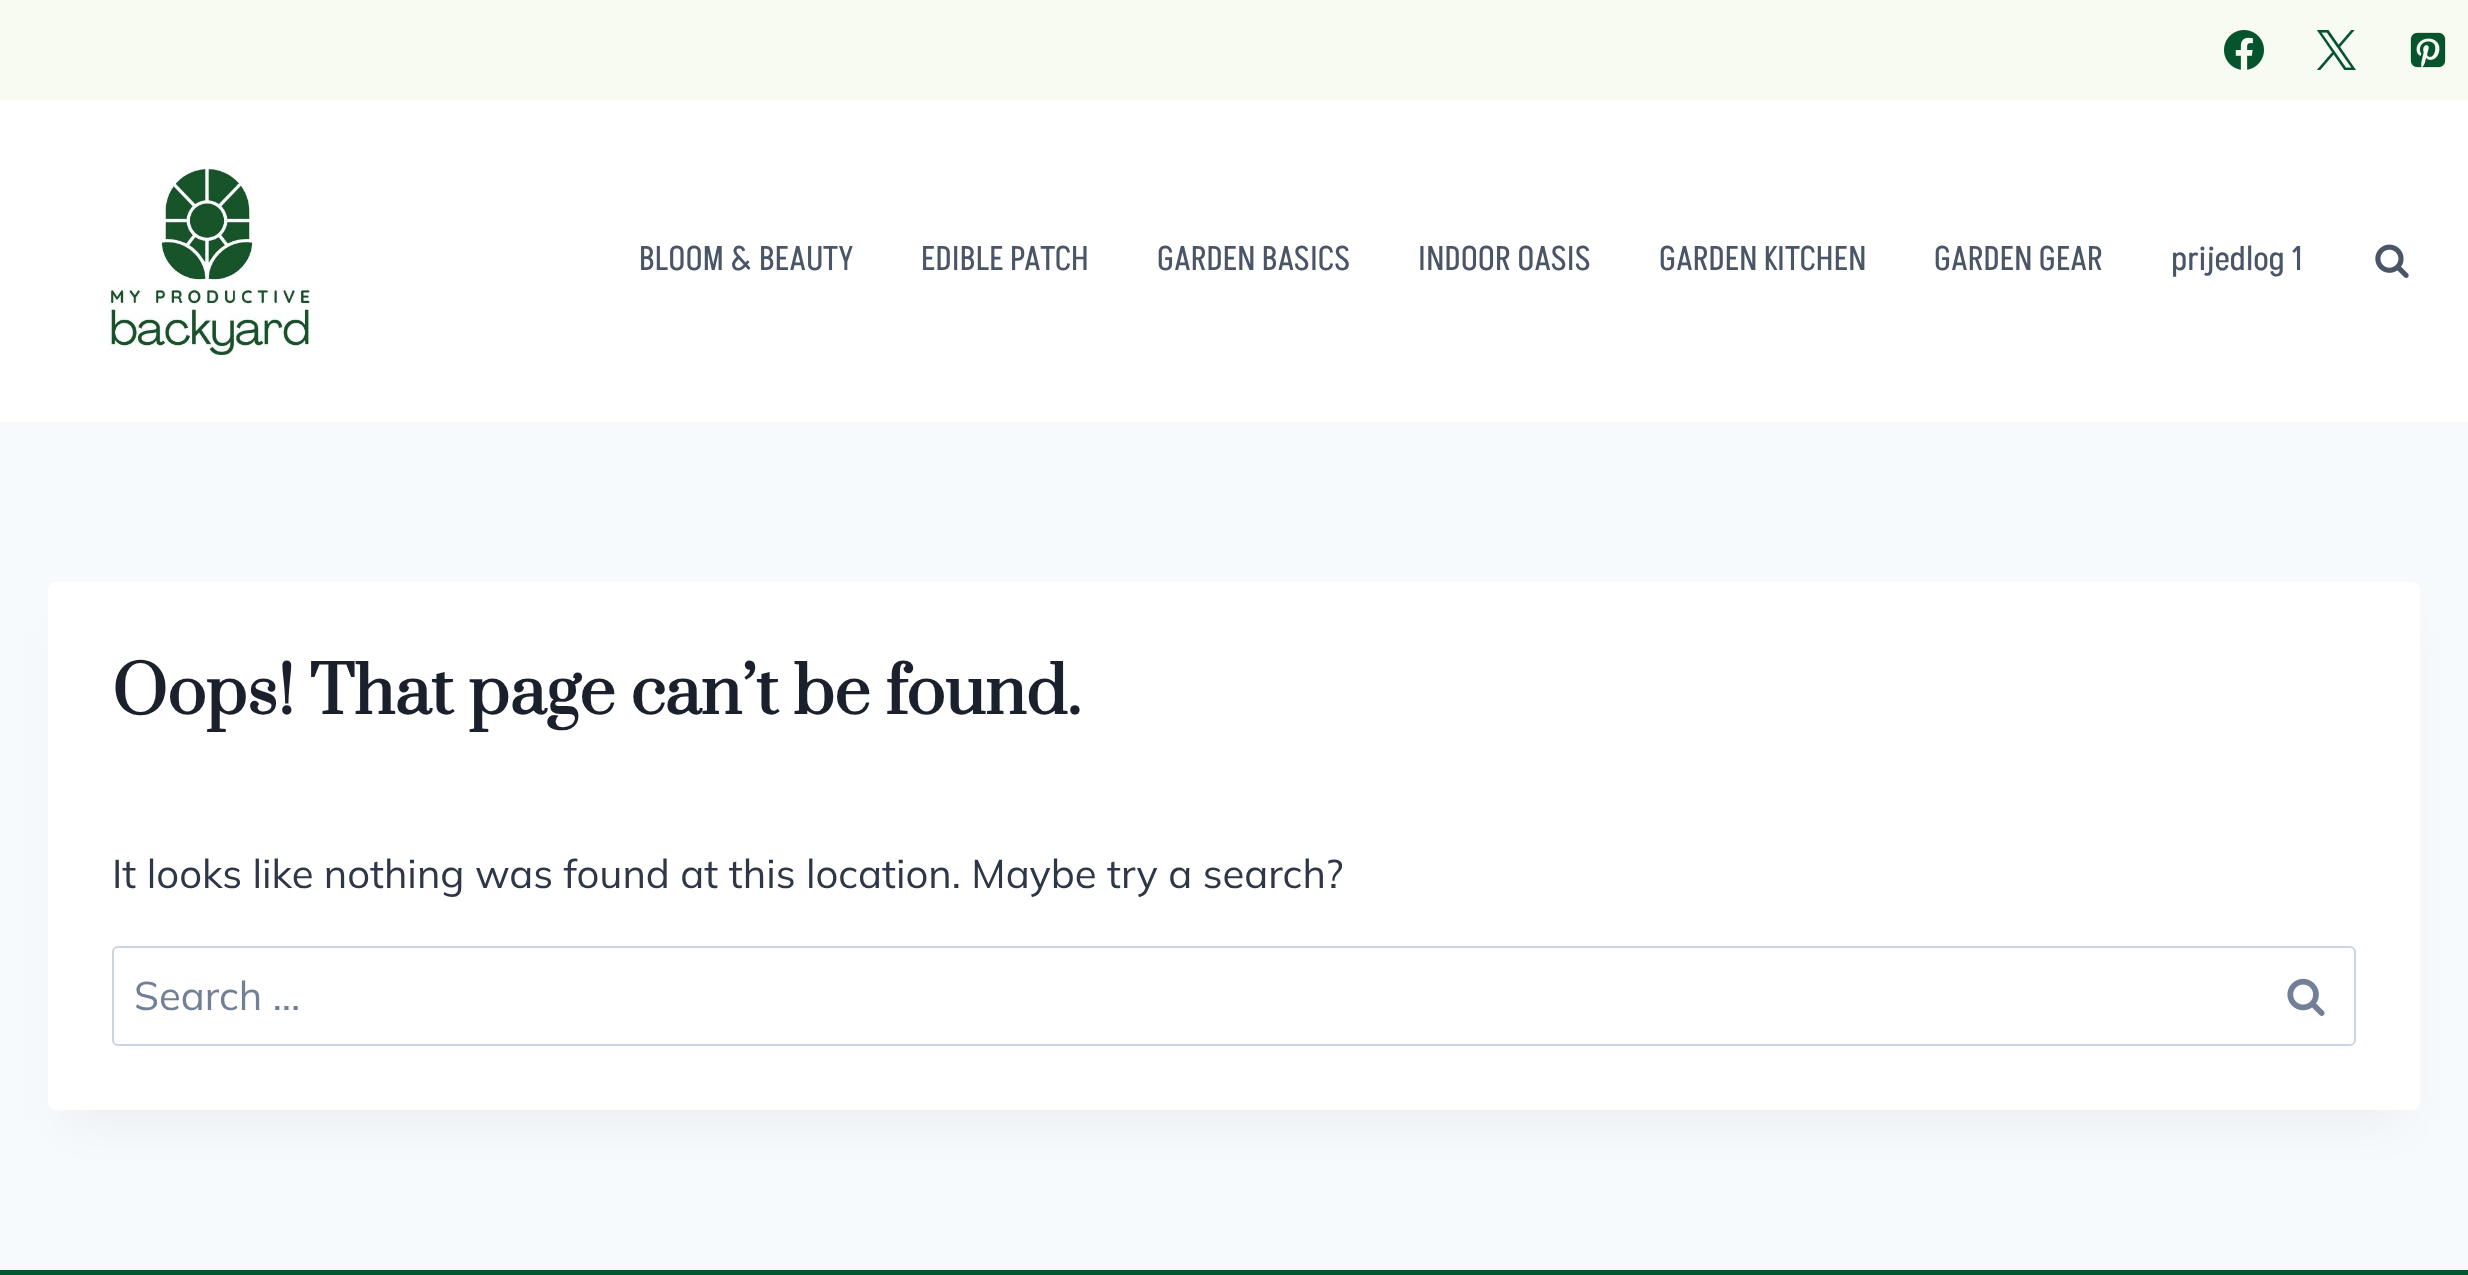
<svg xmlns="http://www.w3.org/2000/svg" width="2468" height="1275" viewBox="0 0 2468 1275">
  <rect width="100%" height="100%" fill="#f7fafc"/>
  <path d="M0 100h2468v322H0z" fill="#fff"/>
  <path d="M0 0h2468v100H0z" fill="#f7fbf1"/>
  <image x="2224" y="30" width="40" height="40" href="img/1.png"/>
  <image x="2317" y="30" width="39" height="40" href="img/2.png"/>
  <image x="2410" y="32" width="36" height="36" href="img/3.png"/>
  <image x="108" y="168" width="202" height="191" href="img/4.png"/>
  <image x="2375" y="244" width="34" height="34" href="img/5.png"/>
  <path d="M68 632h2332v488H68z" fill="#0000000d" filter="blur(25px)"/>
  <rect x="48" y="582" width="2372" height="528" rx="8" fill="#fff"/>
  <rect x="113" y="947" width="2242" height="98" rx="5" fill="none" stroke="#cbd5e0" stroke-width="2"/>
  <image x="2287" y="978" width="38" height="38" href="img/6.png"/>
  <path d="M0 1270h2468v5H0z" fill="#05542e"/>
  <g font-family="Akshar" font-size="34" font-weight="300" fill="#4a5568">
    <text x="639" y="270">BLOOM &amp; BEAUTY</text>
    <text x="921" y="270">EDIBLE PATCH</text>
    <text x="1157" y="270">GARDEN BASICS</text>
    <text x="1418" y="270">INDOOR OASIS</text>
    <text x="1659" y="270">GARDEN KITCHEN</text>
    <text x="1934" y="270">GARDEN GEAR</text>
    <text x="2171" y="270">prijedlog 1</text>
  </g>
  <text x="112" y="714" font-family="Prata" font-size="64" font-weight="bold" fill="#1a202c">Oops! That page can’t be found.</text>
  <text x="112" y="888" font-family="Mulish" font-size="40" fill="#2d3748">It looks like nothing was found at this location. Maybe try a search?</text>
  <text x="134" y="1010" font-family="Mulish" font-size="40" fill="#718096">Search …</text>
</svg>
